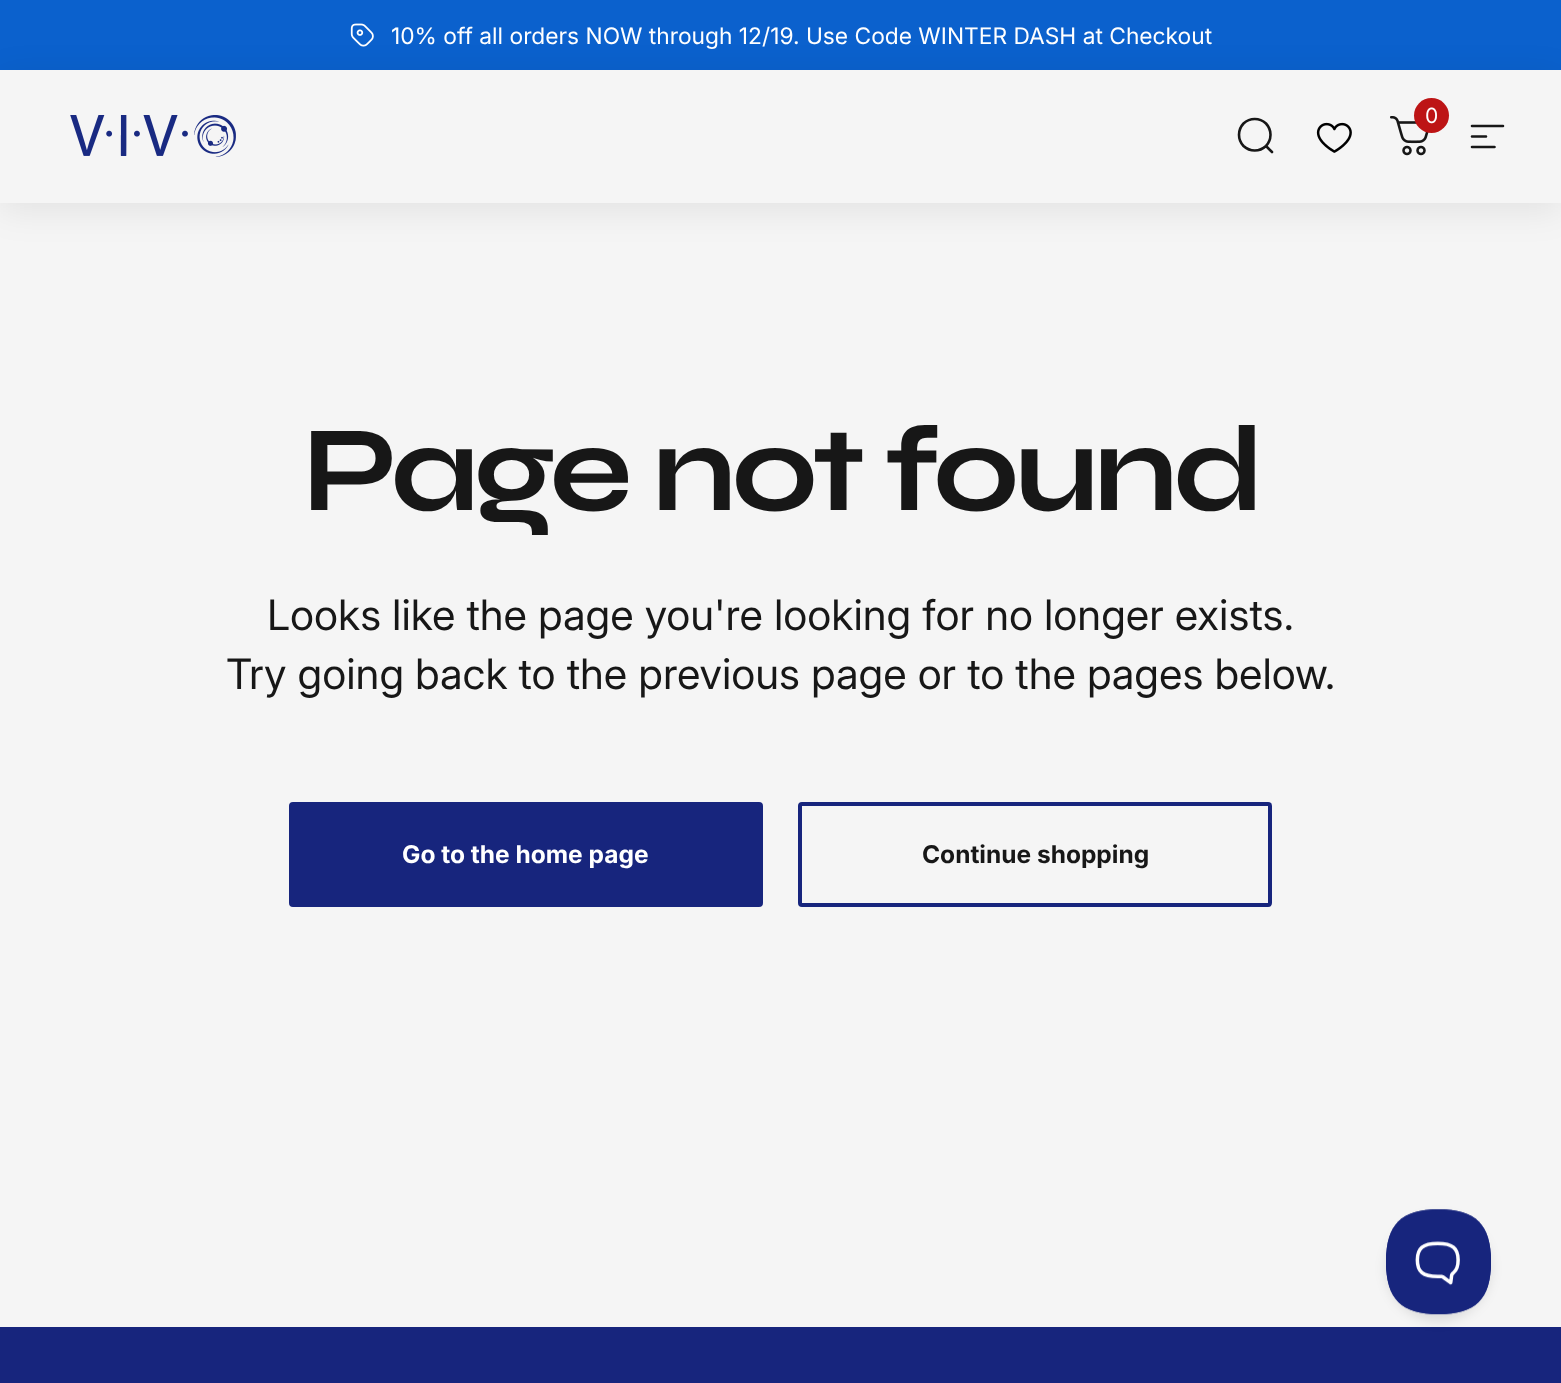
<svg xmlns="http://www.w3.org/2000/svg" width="1561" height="1383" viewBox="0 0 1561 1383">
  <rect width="100%" height="100%" fill="#17257d"/>
  <path d="M0 0h1561v70H0z" fill="#0b61cd"/>
  <image x="350" y="23" width="24" height="24" href="img/1.png"/>
  <path d="M0 203h1561v1124H0z" fill="#f5f5f5"/>
  <path d="M0 77h1561v133H0z" fill="#00000014" filter="blur(17.5px)"/>
  <path d="M0 70h1561v133H0z" fill="#f5f5f5"/>
  <image x="70" y="115" width="166" height="42" href="img/2.png"/>
  <path d="M1272 152L1266 146M1266 146C1272 139.5 1272 130 1266 123.5C1259.5 117.5 1250 117.5 1243.5 123.5C1237.5 130 1237.5 139.5 1243.5 146C1250 152 1259.5 152 1266 146Z" fill="none" stroke="#171717" stroke-width="2.6" stroke-linecap="round"/>
  <image x="1316" y="122" width="36" height="31" href="img/3.png"/>
  <image x="1390" y="116" width="39" height="40" href="img/4.png"/>
  <circle cx="1431.5" cy="115.5" r="17.5" fill="#bd1415"/>
  <path d="M1472 126H1503M1472 136.5H1486M1472 147H1494.5" fill="none" stroke="#171717" stroke-width="2.6" stroke-linecap="round"/>
  <rect x="291" y="804" width="470" height="101" rx="2" fill="#17257d" stroke="#17257d" stroke-width="4"/>
  <rect x="800" y="804" width="470" height="101" rx="2" fill="none" stroke="#17257d" stroke-width="4"/>
  <rect x="1386" y="1216" width="105" height="105" rx="52.5" fill="#0000001a" filter="blur(6px)"/>
  <image x="1386" y="1209" width="105" height="106" href="img/5.png"/>
  <text x="391" y="44" font-family="Inter" font-size="22.75" fill="#fff">10% off all orders NOW through 12/19. Use Code WINTER DASH at Checkout</text>
  <text x="1425" y="123" font-family="Inter" font-size="21" fill="#fff">0</text>
  <text x="302" y="510" font-family="Syne" font-size="122" font-weight="bold" letter-spacing="-4.9" fill="#171717">Page not found</text>
  <g font-family="'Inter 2'" font-size="42" fill="#171717">
    <text x="267" y="630">Looks like the page you're looking for no longer exists.</text>
    <text x="226" y="689">Try going back to the previous page or to the pages below.</text>
  </g>
  <text x="402" y="863" font-family="Inter" font-size="24.5" font-weight="bold" fill="#fff">Go to the home page</text>
  <text x="922" y="863" font-family="Inter" font-size="24.5" font-weight="bold" fill="#171717">Continue shopping</text>
</svg>
